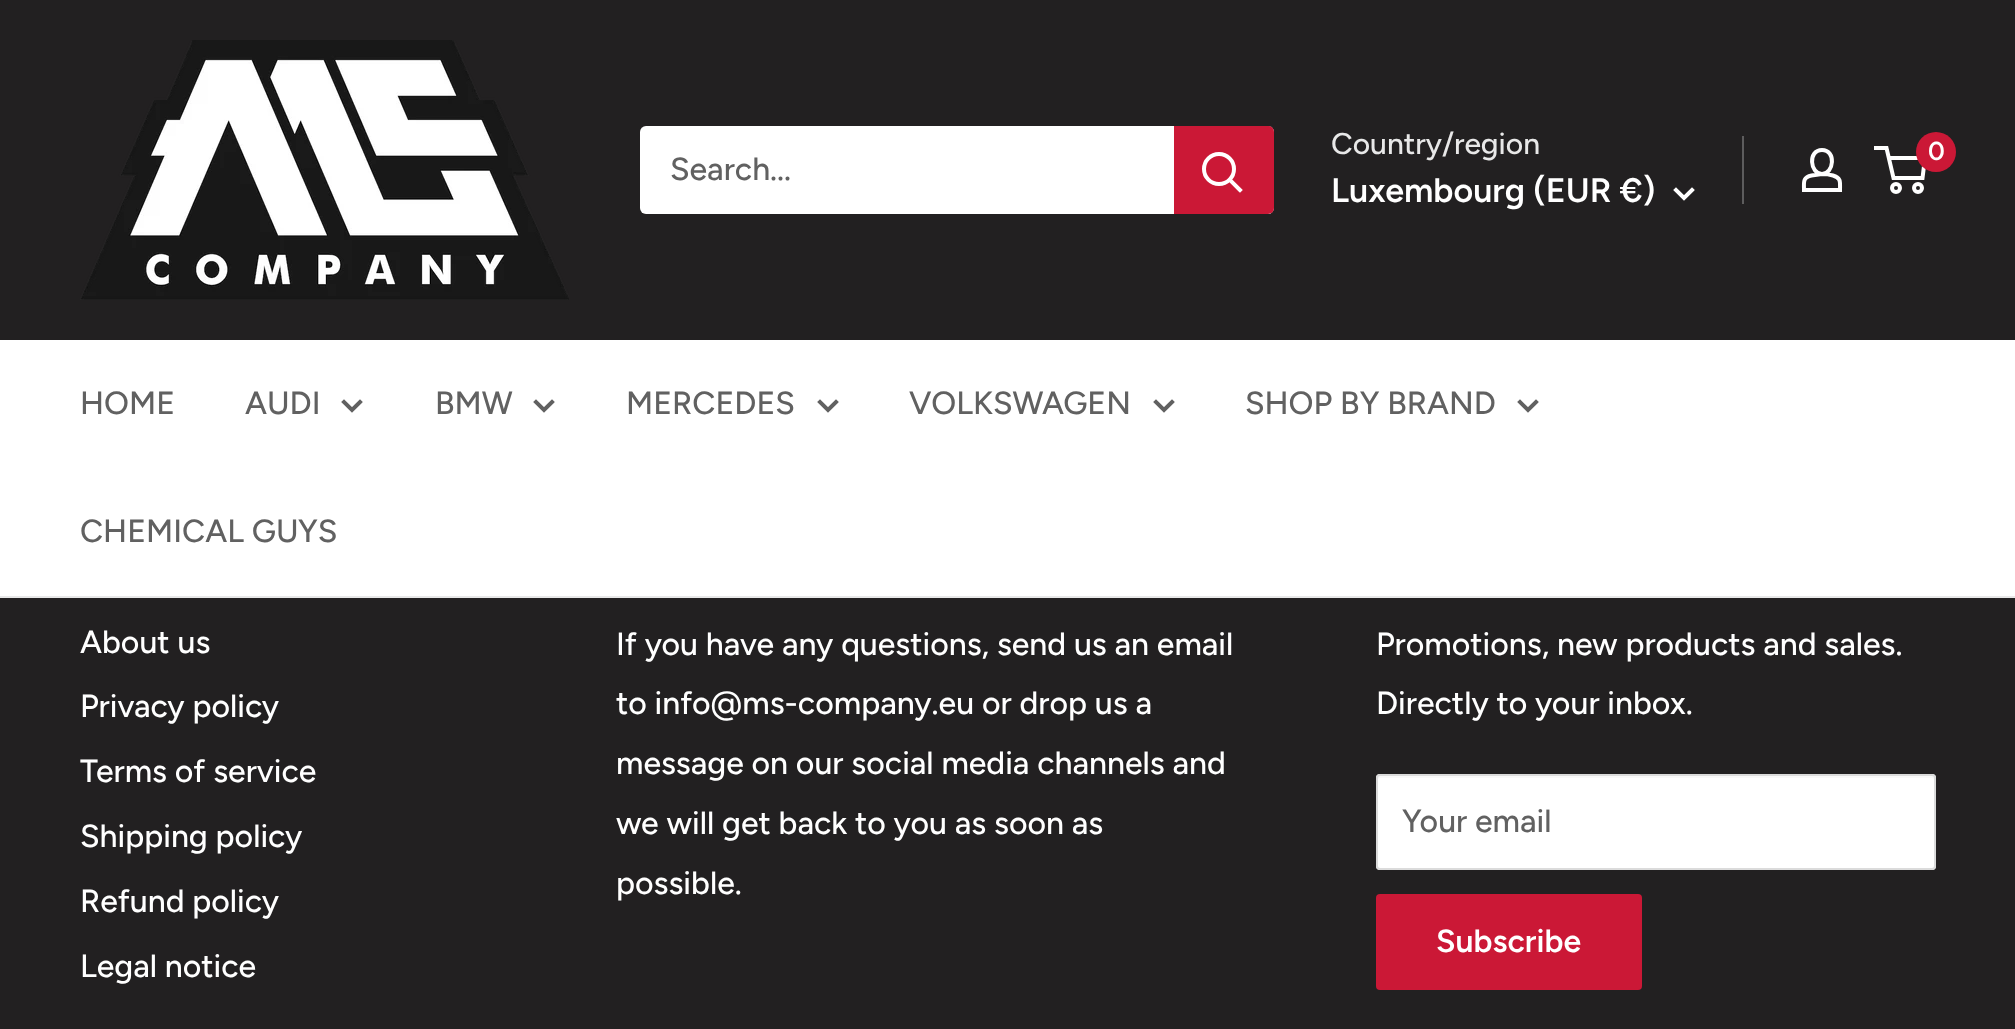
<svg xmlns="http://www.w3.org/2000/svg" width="2015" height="1029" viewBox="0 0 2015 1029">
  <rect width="100%" height="100%" fill="#222021"/>
  <image x="80" y="40" width="489" height="260" href="img/1.png"/>
  <rect x="640" y="126" width="634" height="88" rx="6" fill="#fff"/>
  <path d="M1174 126H1268C1271.5 126 1274 128.5 1274 132V208C1274 211.5 1271.5 214 1268 214H1174Z" fill="#cb1836"/>
  <path d="M1240 190L1230 180" fill="none" stroke="#fff" stroke-width="4" stroke-linecap="square"/>
  <circle cx="1219" cy="169" r="15" fill="none" stroke="#fff" stroke-width="4"/>
  <path d="M1692 190L1684 198L1676 190" fill="none" stroke="#fff" stroke-width="4" stroke-linecap="square"/>
  <path d="M1742 136h2v68H1742z" fill="#5d5c5d"/>
  <path d="M1822 174C1826 174 1829.5 174.5 1833 175.5C1841.5 178 1840 182.5 1840 190H1804C1804 182 1802.5 177.5 1811.5 175.5ZM1822 174C1810 174 1807.5 150 1822 150C1836.5 150 1834 174 1822 174Z" fill="none" stroke="#fff" stroke-width="4"/>
  <circle cx="1896" cy="188" r="4" fill="none" stroke="#fff" stroke-width="4"/>
  <circle cx="1918" cy="188" r="4" fill="none" stroke="#fff" stroke-width="4"/>
  <path d="M1888.5 158H1925L1922.5 178H1893.5L1886.5 148H1874" fill="none" stroke="#fff" stroke-width="4"/>
  <circle cx="1936" cy="152" r="20" fill="#cb1836"/>
  <path d="M0 340h2015v256H0z" fill="#fff"/>
  <path d="M0 596h2015v2H0z" fill="#e8e8e8"/>
  <path d="M360 402L352 410L344 402" fill="none" stroke="#616161" stroke-width="4" stroke-linecap="square"/>
  <path d="M552 402L544 410L536 402" fill="none" stroke="#616161" stroke-width="4" stroke-linecap="square"/>
  <path d="M836 402L828 410L820 402" fill="none" stroke="#616161" stroke-width="4" stroke-linecap="square"/>
  <path d="M1172 402L1164 410L1156 402" fill="none" stroke="#616161" stroke-width="4" stroke-linecap="square"/>
  <path d="M1536 402L1528 410L1520 402" fill="none" stroke="#616161" stroke-width="4" stroke-linecap="square"/>
  <rect x="1376" y="774" width="560" height="96" rx="4" fill="#fff"/>
  <path d="M1380 778H1932C1933 778 1934 779 1934 780C1934 778 1934 776 1932 776H1380L1378 777V780C1378 779 1379 778 1380 778Z" fill="#f9f9f9"/>
  <rect x="1377" y="775" width="558" height="94" rx="3" fill="none" stroke="#dbdbdb" stroke-width="2"/>
  <rect x="1376" y="894" width="266" height="96" rx="4" fill="#cb1836"/>
  <text x="670" y="180" font-family="Figtree" font-size="32" font-weight="500" fill="#616161">Search...</text>
  <text x="1331" y="154" font-family="Figtree" font-size="30" font-weight="500" fill="#e8e8e8">Country/region</text>
  <text x="1331" y="202" font-family="Figtree" font-size="34" font-weight="600" fill="#fff">Luxembourg (EUR €)</text>
  <text x="1928" y="160" font-family="Figtree" font-size="26" font-weight="600" fill="#fff">0</text>
  <g font-family="Figtree" font-size="32" font-weight="500" fill="#616161">
    <text x="80" y="414">HOME</text>
    <text x="245" y="414">AUDI</text>
    <text x="435" y="414">BMW</text>
    <text x="626" y="414">MERCEDES</text>
    <text x="909" y="414">VOLKSWAGEN</text>
    <text x="1245" y="414">SHOP BY BRAND</text>
    <text x="80" y="542">CHEMICAL GUYS</text>
  </g>
  <g font-family="Figtree" font-size="32" font-weight="500" fill="#fff">
    <text x="80" y="653">About us</text>
    <text x="80" y="717">Privacy policy</text>
    <text x="80" y="782">Terms of service</text>
    <text x="80" y="847">Shipping policy</text>
    <text x="80" y="912">Refund policy</text>
    <text x="80" y="977">Legal notice</text>
    <text x="616" y="655">If you have any questions, send us an email</text>
    <text x="616" y="714">to info@ms-company.eu or drop us a</text>
    <text x="616" y="774">message on our social media channels and</text>
    <text x="616" y="834">we will get back to you as soon as</text>
    <text x="616" y="894">possible.</text>
    <text x="1376" y="655">Promotions, new products and sales.</text>
    <text x="1376" y="714">Directly to your inbox.</text>
  </g>
  <text x="1402" y="832" font-family="Figtree" font-size="32" font-weight="500" fill="#616161">Your email</text>
  <text x="1436" y="952" font-family="Figtree" font-size="32" font-weight="600" fill="#fff">Subscribe</text>
</svg>
